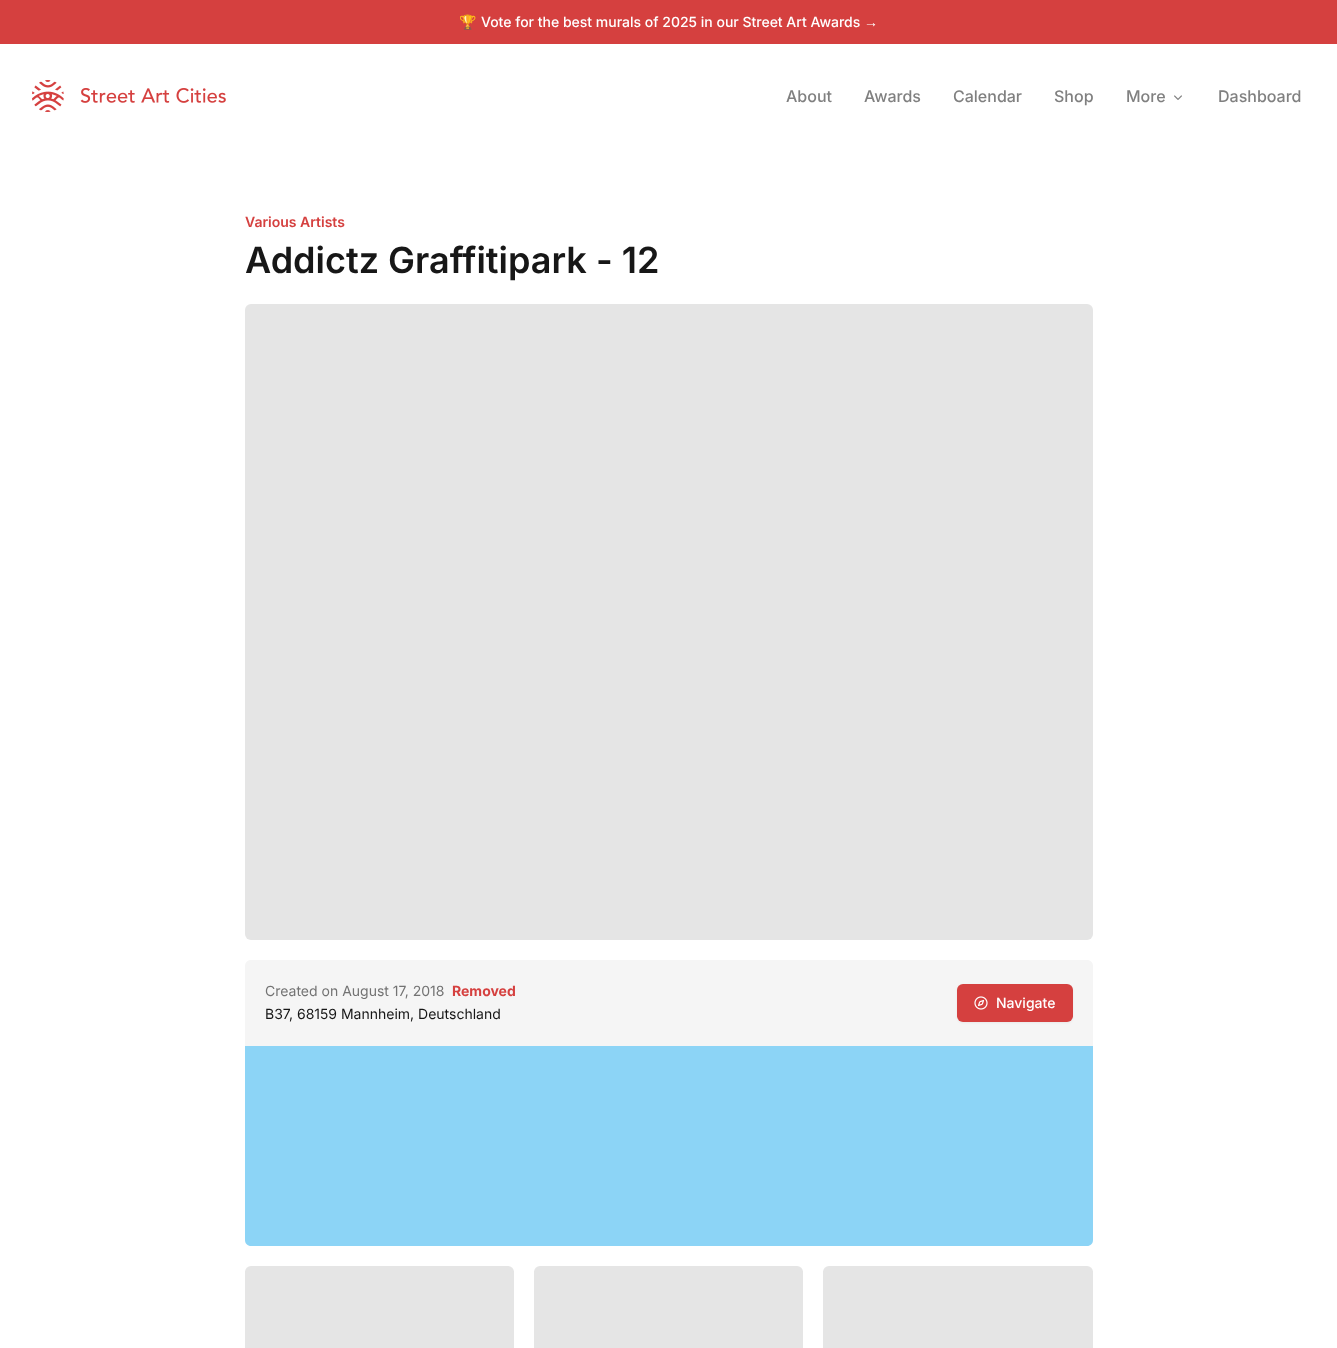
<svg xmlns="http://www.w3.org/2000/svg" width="1337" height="1348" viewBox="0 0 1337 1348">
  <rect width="100%" height="100%" fill="#fff"/>
  <path d="M0 0h1337v44H0z" fill="#d5403f"/>
  <image x="32" y="80" width="194" height="32" href="img/1.png"/>
  <image x="1174" y="95" width="8" height="5" href="img/2.png"/>
  <rect x="245" y="304" width="848" height="636" rx="6" fill="#e5e5e5"/>
  <path d="M251 960H1087C1090.5 960 1093 962.5 1093 966V1046H245V966C245 962.5 247.5 960 251 960Z" fill="#f5f5f5"/>
  <rect x="957" y="985" width="116" height="38" rx="6" fill="#0000000d" filter="blur(1px)"/>
  <rect x="957" y="984" width="116" height="38" rx="6" fill="#d5403f"/>
  <image x="974" y="996" width="14" height="14" href="img/3.png"/>
  <path d="M245 1046H1093V1240C1093 1243.5 1090.5 1246 1087 1246H251C247.5 1246 245 1243.5 245 1240Z" fill="#8cd4f6"/>
  <rect x="245" y="1266" width="269" height="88" rx="6" fill="#e5e5e5"/>
  <rect x="534" y="1266" width="269" height="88" rx="6" fill="#e5e5e5"/>
  <rect x="823" y="1266" width="270" height="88" rx="6" fill="#e5e5e5"/>
  <text x="459" y="27" font-family="Noto Color Emoji" font-size="14" fill="#fff">🏆</text>
  <text x="481" y="27" font-family="Inter" font-size="14" font-weight="500" fill="#fff">Vote for the best murals of 2025 in our Street Art Awards</text>
  <text x="864" y="27" font-family="Liberation Sans" font-size="14" fill="#fff">→</text>
  <g font-family="Inter" font-size="16" font-weight="500" fill="#808080">
    <text x="786" y="102">About</text>
    <text x="864" y="102">Awards</text>
    <text x="953" y="102">Calendar</text>
    <text x="1054" y="102">Shop</text>
    <text x="1126" y="102">More</text>
    <text x="1218" y="102">Dashboard</text>
  </g>
  <text x="245" y="227" font-family="Inter" font-size="14" font-weight="600" fill="#d5403f">Various Artists</text>
  <text x="245" y="273" font-family="Inter" font-size="36" font-weight="600" fill="#171717">Addictz Graffitipark - 12</text>
  <text x="265" y="996" font-family="Inter" font-size="14" fill="#737373">Created on August 17, 2018</text>
  <text x="452" y="996" font-family="Inter" font-size="14" font-weight="bold" fill="#d5403f">Removed</text>
  <text x="265" y="1019" font-family="Inter" font-size="14" fill="#171717">B37, 68159 Mannheim, Deutschland</text>
  <text x="996" y="1008" font-family="Inter" font-size="14" font-weight="500" fill="#fff">Navigate</text>
</svg>
